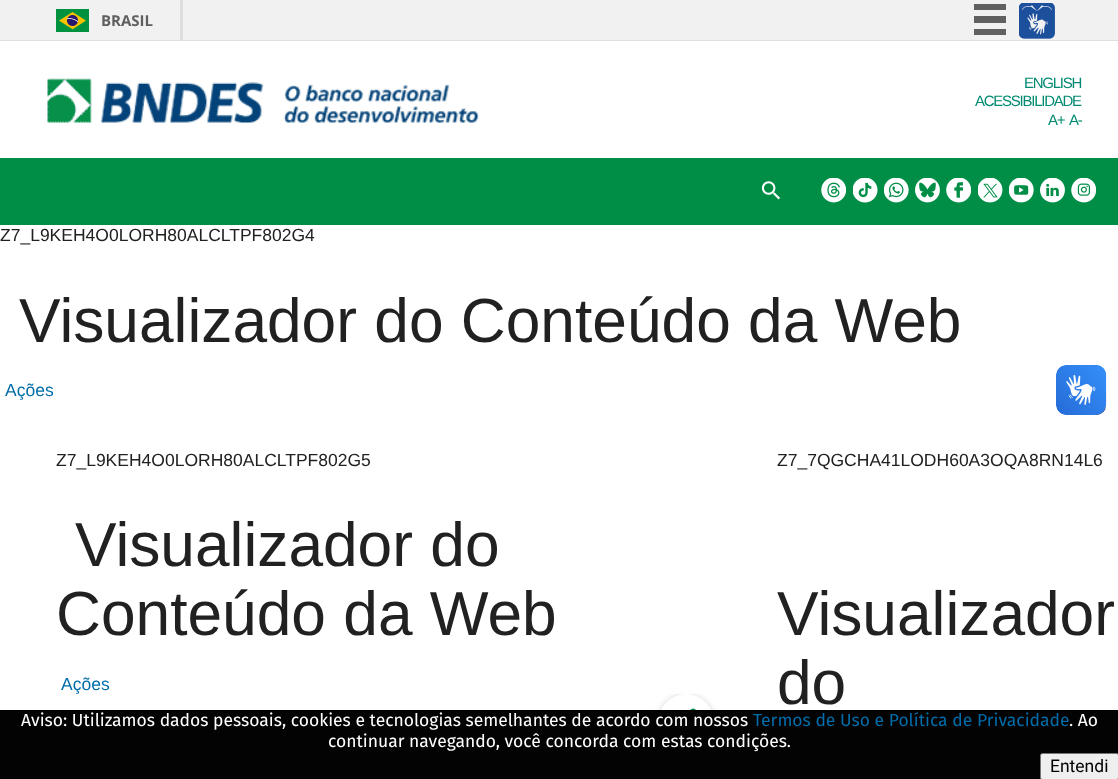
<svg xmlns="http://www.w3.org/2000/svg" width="1118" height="779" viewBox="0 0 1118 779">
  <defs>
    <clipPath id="clip1"><path d="M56 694h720v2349H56z"/></clipPath>
  </defs>
  <rect width="100%" height="100%" fill="#fff"/>
  <path d="M0 0h1118v40H0z" fill="#f1f1f1"/>
  <path d="M0 40h1118v1H0z" fill="#dfdfdf"/>
  <path d="M180 0h3v40H180z" fill="#dfdfdf"/>
  <image x="56" y="9" width="33" height="23" href="img/1.png"/>
  <path d="M974 4h32v6H974z" fill="#606060"/>
  <path d="M974 16h32v7H974z" fill="#606060"/>
  <path d="M974 29h32v6H974z" fill="#606060"/>
  <image x="1019" y="3" width="36" height="36" href="img/2.png"/>
  <image x="47" y="78" width="432" height="45" href="img/3.png"/>
  <path d="M0 158h1118v67H0z" fill="#008e47"/>
  <image x="761" y="181" width="19" height="19" href="img/4.png"/>
  <image x="821" y="178" width="25" height="25" href="img/5.png"/>
  <image x="853" y="178" width="25" height="25" href="img/6.png"/>
  <image x="884" y="178" width="25" height="25" href="img/7.png"/>
  <image x="915" y="178" width="25" height="25" href="img/8.png"/>
  <image x="946" y="178" width="25" height="25" href="img/9.png"/>
  <image x="978" y="178" width="25" height="25" href="img/10.png"/>
  <image x="1009" y="178" width="25" height="25" href="img/11.png"/>
  <image x="1040" y="178" width="25" height="25" href="img/12.png"/>
  <image x="1071" y="178" width="25" height="25" href="img/13.png"/>
  <g clip-path="url(#clip1)">
    <rect x="658" y="695" width="56" height="56" rx="28" fill="#00000033" filter="blur(3px)"/>
  </g>
  <circle cx="686" cy="722" r="28" fill="#fff"/>
  <image x="690" y="708" width="6" height="2" href="img/14.png"/>
  <image x="1056" y="365" width="51" height="50" href="img/15.png"/>
  <image x="1056" y="365" width="50" height="50" href="img/16.png"/>
  <path d="M0 710h1118v69H0z" fill="#030303"/>
  <rect x="1040.5" y="753.5" width="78" height="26" rx="2" fill="#efefef" stroke="#767676"/>
  <text x="101" y="26" font-family="Open Sans" font-size="15" font-weight="bold" fill="#606060">BRASIL</text>
  <g font-family="Liberation Sans" font-size="15" letter-spacing="-1.25" fill="#008a71">
    <text x="1024" y="88">ENGLISH</text>
    <text x="975" y="106">ACESSIBILIDADE</text>
    <text x="1048" y="125">A+</text>
    <text x="1069" y="125">A-</text>
  </g>
  <text x="0" y="241" font-family="Liberation Sans" font-size="17.5" fill="#212121">Z7_L9KEH4O0LORH80ALCLTPF802G4</text>
  <text x="19" y="342" font-family="Liberation Sans" font-size="62.25" fill="#212121">Visualizador do Conteúdo da Web</text>
  <text x="5" y="396" font-family="Liberation Sans" font-size="17.5" fill="#006daa">Ações</text>
  <text x="56" y="466" font-family="Liberation Sans" font-size="17.5" fill="#212121">Z7_L9KEH4O0LORH80ALCLTPF802G5</text>
  <g font-family="Liberation Sans" font-size="62.25" fill="#212121">
    <text x="75" y="566">Visualizador do</text>
    <text x="56" y="635">Conteúdo da Web</text>
  </g>
  <text x="61" y="690" font-family="Liberation Sans" font-size="17.5" fill="#006daa">Ações</text>
  <text x="777" y="466" font-family="Liberation Sans" font-size="17.5" fill="#212121">Z7_7QGCHA41LODH60A3OQA8RN14L6</text>
  <g font-family="Liberation Sans" font-size="62.25" fill="#212121">
    <text x="777" y="635">Visualizador</text>
    <text x="777" y="704">do</text>
  </g>
  <text x="21" y="726" font-family="Fira Sans" font-size="17.5" fill="#fff">Aviso: Utilizamos dados pessoais, cookies e tecnologias semelhantes de acordo com nossos</text>
  <text x="753" y="726" font-family="Fira Sans" font-size="17.5" fill="#006daa">Termos de Uso e Política de Privacidade</text>
  <g font-family="Fira Sans" font-size="17.5" fill="#fff">
    <text x="1069" y="726">. Ao</text>
    <text x="328" y="747">continuar navegando, você concorda com estas condições.</text>
  </g>
  <text x="1050" y="772" font-family="Roboto" font-size="17.5" fill="#000">Entendi</text>
</svg>
